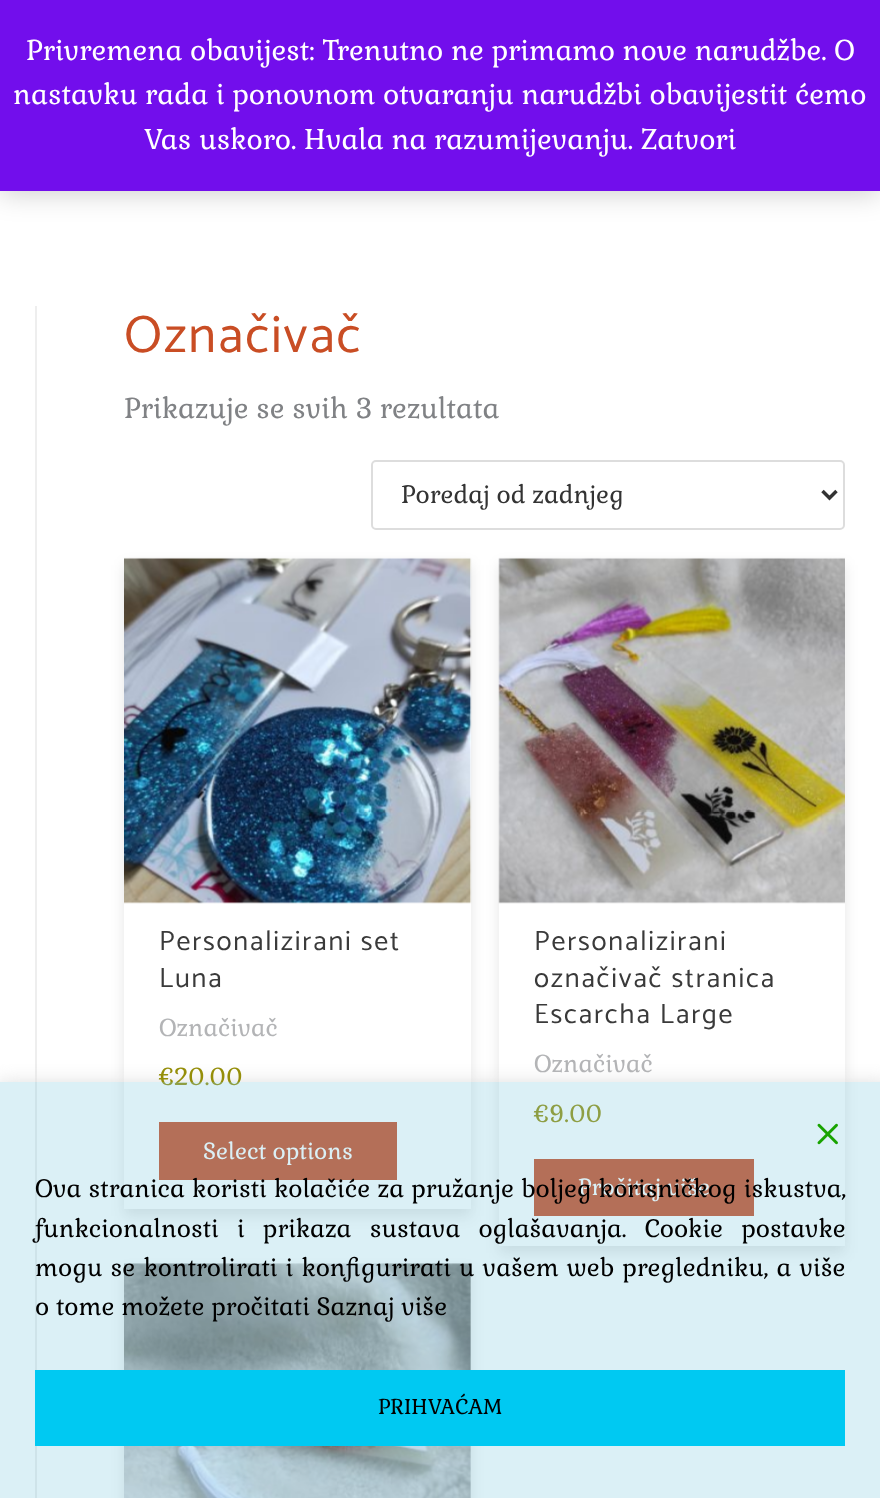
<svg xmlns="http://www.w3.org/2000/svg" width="880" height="1498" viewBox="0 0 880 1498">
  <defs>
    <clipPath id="clip1"><path d="M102 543H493V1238H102ZM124 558H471V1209H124Z" clip-rule="evenodd"/></clipPath>
    <clipPath id="clip2"><path d="M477 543H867V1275H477ZM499 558H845V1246H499Z" clip-rule="evenodd"/></clipPath>
    <clipPath id="clip3"><path d="M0 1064h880v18H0z"/></clipPath>
  </defs>
  <rect width="100%" height="100%" fill="#fff"/>
  <path d="M0 2h880v191H0z" fill="#00000033" filter="blur(14px)"/>
  <path d="M0 0h880v191H0z" fill="#720eec"/>
  <path d="M35 306h2v1192H35z" fill="#eee"/>
  <rect x="372" y="461" width="472" height="68" rx="4" fill="none" stroke="#ddd" stroke-width="2"/>
  <path d="M822.5 491L829.5 498L836.5 491" fill="none" stroke="#333" stroke-width="3.5"/>
  <g clip-path="url(#clip1)">
    <path d="M124 565h347v651H124z" fill="#0000001a" filter="blur(7px)"/>
  </g>
  <image x="124" y="557" width="348" height="347" href="img/1.png"/>
  <path d="M159 1122h238v58H159z" fill="#c94d24"/>
  <g clip-path="url(#clip2)">
    <path d="M499 565h346v688H499z" fill="#0000001a" filter="blur(7px)"/>
  </g>
  <image x="498" y="557" width="347" height="347" href="img/2.png"/>
  <path d="M534 1159h220v57H534z" fill="#c94d24"/>
  <path d="M124 1271h347v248H124z" fill="#0000001a" filter="blur(7px)"/>
  <image x="124" y="1263" width="347" height="235" href="img/3.png"/>
  <g clip-path="url(#clip3)">
    <path d="M-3 1083h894v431H-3z" fill="#ddd" filter="blur(9.5px)"/>
  </g>
  <g font-family="Gabriela" font-size="28" fill="#fff">
    <text x="26" y="60">Privremena obavijest: Trenutno ne primamo nove narudžbe. O</text>
    <text x="13" y="104">nastavku rada i ponovnom otvaranju narudžbi obavijestit ćemo</text>
    <text x="144" y="149">Vas uskoro. Hvala na razumijevanju. Zatvori</text>
  </g>
  <text x="124" y="352" font-family="Catamaran" font-size="52.5" letter-spacing="1.75" fill="#c94d24">Označivač</text>
  <text x="124" y="418" font-family="Gabriela" font-size="28" fill="#808285">Prikazuje se svih 3 rezultata</text>
  <text x="401" y="503" font-family="Gabriela" font-size="24.5" fill="#333">Poredaj od zadnjeg</text>
  <g font-family="Catamaran" font-size="28" letter-spacing="1.75" fill="#3a3a3a">
    <text x="159" y="950">Personalizirani set</text>
    <text x="159" y="987">Luna</text>
  </g>
  <text x="159" y="1036" font-family="Gabriela" font-size="24" fill="#b3b4b6">Označivač</text>
  <text x="159" y="1085" font-family="Gabriela" font-size="24" fill="#958e09">€20.00</text>
  <text x="203" y="1159" font-family="Gabriela" font-size="22.75" fill="#fff">Select options</text>
  <g font-family="Catamaran" font-size="28" letter-spacing="1.75" fill="#3a3a3a">
    <text x="534" y="950">Personalizirani</text>
    <text x="534" y="987">označivač stranica</text>
    <text x="534" y="1023">Escarcha Large</text>
  </g>
  <text x="534" y="1072" font-family="Gabriela" font-size="24" fill="#b3b4b6">Označivač</text>
  <text x="534" y="1122" font-family="Gabriela" font-size="24" fill="#958e09">€9.00</text>
  <text x="578" y="1195" font-family="Gabriela" font-size="22.75" fill="#fff">Pročitaj više</text>
  <path d="M0 1082h880v416H0z" fill="#7fc9e047"/>
  <image x="817" y="1123" width="21" height="22" href="img/4.png"/>
  <g font-family="Gabriela" font-size="24.5" fill="#000">
    <text x="35" y="1197" word-spacing="0.5">Ova stranica koristi kolačiće za pružanje boljeg korisničkog iskustva,</text>
    <text x="35" y="1237" word-spacing="11.5">funkcionalnosti i prikaza sustava oglašavanja. Cookie postavke</text>
    <text x="35" y="1276" word-spacing="1.4">mogu se kontrolirati i konfigurirati u vašem web pregledniku, a više</text>
    <text x="35" y="1315">o tome možete pročitati Saznaj više</text>
  </g>
  <path d="M35 1370h810v76H35z" fill="#00c9f2"/>
  <text x="378" y="1414" font-family="Gabriela" font-size="21" fill="#000">PRIHVAĆAM</text>
</svg>
